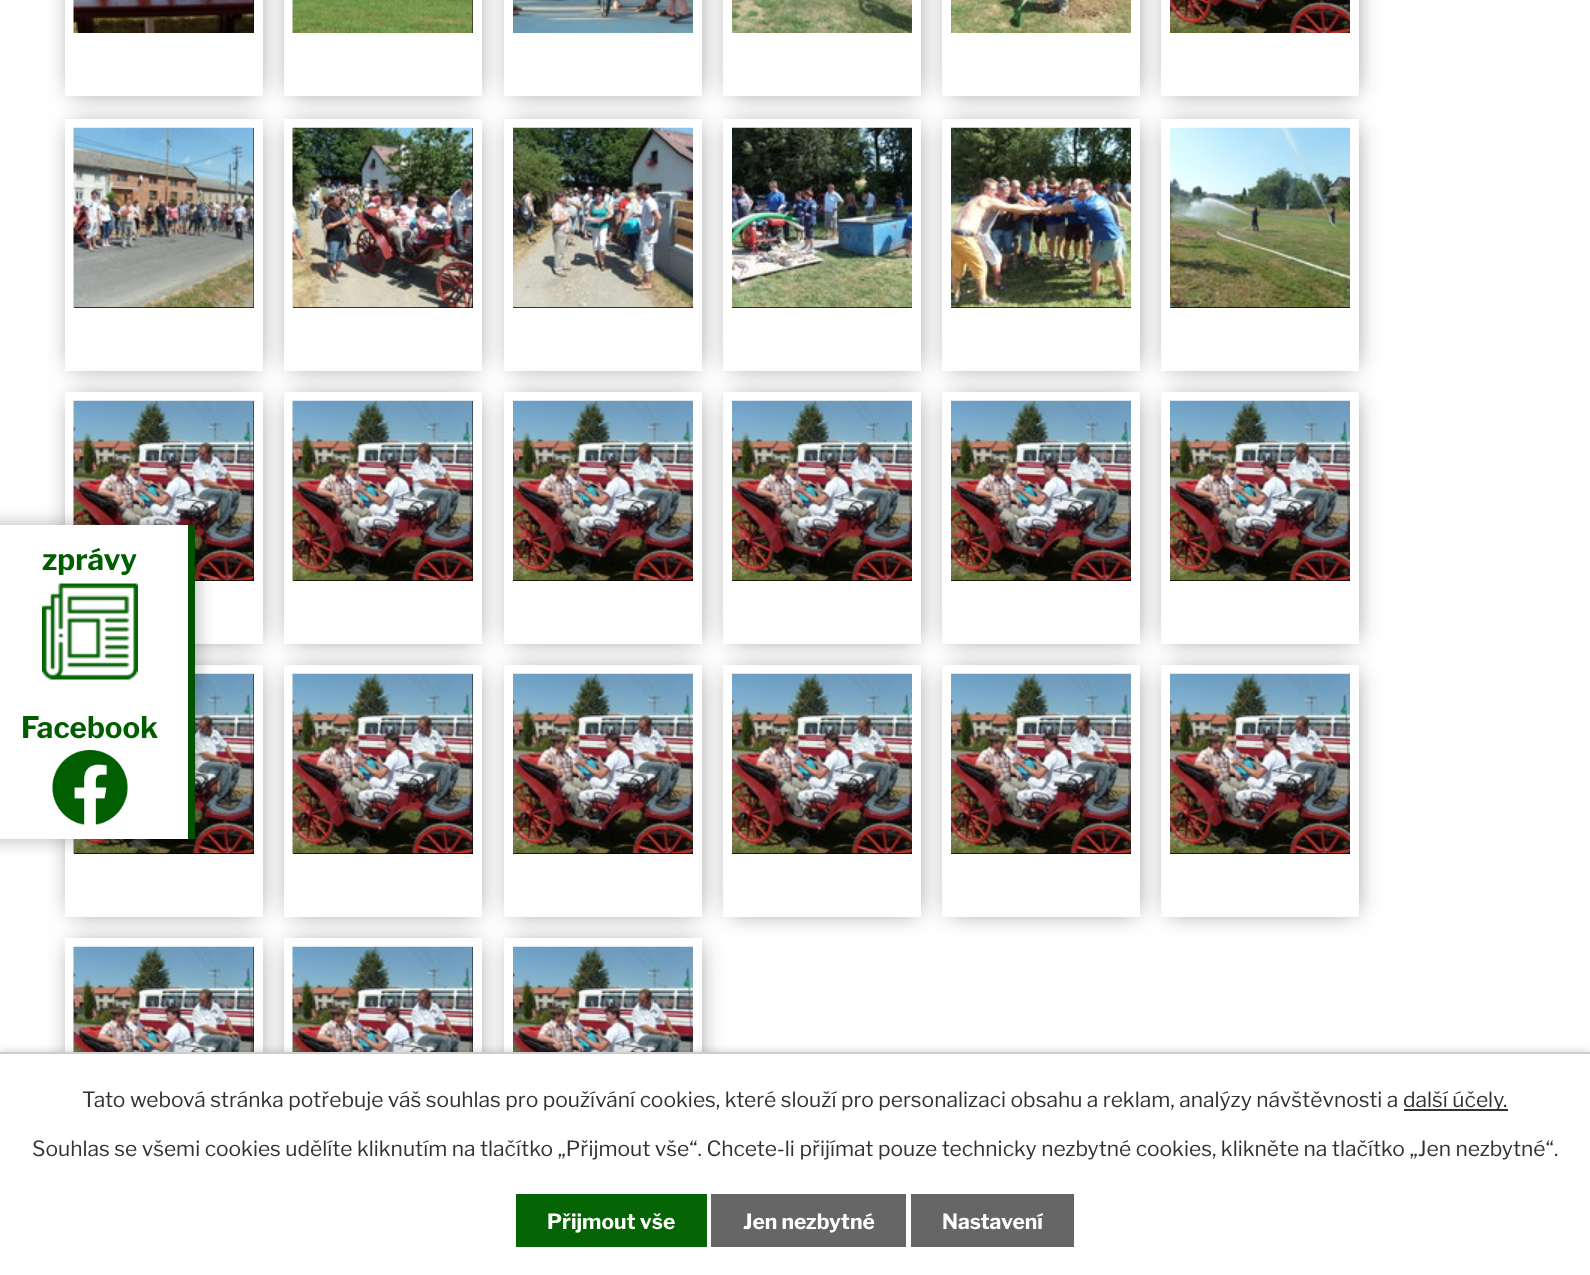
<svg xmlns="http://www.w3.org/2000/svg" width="1590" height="1275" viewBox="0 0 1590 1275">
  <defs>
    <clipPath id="clip1"><path d="M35 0H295V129H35ZM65-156H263V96H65Z" clip-rule="evenodd"/></clipPath>
    <clipPath id="clip2"><path d="M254 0H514V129H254ZM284-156H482V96H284Z" clip-rule="evenodd"/></clipPath>
    <clipPath id="clip3"><path d="M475 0H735V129H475ZM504-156H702V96H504Z" clip-rule="evenodd"/></clipPath>
    <clipPath id="clip4"><path d="M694 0H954V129H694ZM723-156H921V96H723Z" clip-rule="evenodd"/></clipPath>
    <clipPath id="clip5"><path d="M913 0H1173V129H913ZM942-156H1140V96H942Z" clip-rule="evenodd"/></clipPath>
    <clipPath id="clip6"><path d="M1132 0H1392V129H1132ZM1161-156H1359V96H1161Z" clip-rule="evenodd"/></clipPath>
    <clipPath id="clip7"><path d="M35 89H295V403H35ZM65 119H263V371H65Z" clip-rule="evenodd"/></clipPath>
    <clipPath id="clip8"><path d="M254 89H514V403H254ZM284 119H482V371H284Z" clip-rule="evenodd"/></clipPath>
    <clipPath id="clip9"><path d="M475 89H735V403H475ZM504 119H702V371H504Z" clip-rule="evenodd"/></clipPath>
    <clipPath id="clip10"><path d="M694 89H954V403H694ZM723 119H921V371H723Z" clip-rule="evenodd"/></clipPath>
    <clipPath id="clip11"><path d="M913 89H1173V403H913ZM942 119H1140V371H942Z" clip-rule="evenodd"/></clipPath>
    <clipPath id="clip12"><path d="M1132 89H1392V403H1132ZM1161 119H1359V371H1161Z" clip-rule="evenodd"/></clipPath>
    <clipPath id="clip13"><path d="M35 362H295V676H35ZM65 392H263V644H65Z" clip-rule="evenodd"/></clipPath>
    <clipPath id="clip14"><path d="M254 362H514V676H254ZM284 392H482V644H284Z" clip-rule="evenodd"/></clipPath>
    <clipPath id="clip15"><path d="M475 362H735V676H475ZM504 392H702V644H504Z" clip-rule="evenodd"/></clipPath>
    <clipPath id="clip16"><path d="M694 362H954V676H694ZM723 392H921V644H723Z" clip-rule="evenodd"/></clipPath>
    <clipPath id="clip17"><path d="M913 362H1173V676H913ZM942 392H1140V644H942Z" clip-rule="evenodd"/></clipPath>
    <clipPath id="clip18"><path d="M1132 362H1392V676H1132ZM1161 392H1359V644H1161Z" clip-rule="evenodd"/></clipPath>
    <clipPath id="clip19"><path d="M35 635H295V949H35ZM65 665H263V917H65Z" clip-rule="evenodd"/></clipPath>
    <clipPath id="clip20"><path d="M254 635H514V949H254ZM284 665H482V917H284Z" clip-rule="evenodd"/></clipPath>
    <clipPath id="clip21"><path d="M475 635H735V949H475ZM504 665H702V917H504Z" clip-rule="evenodd"/></clipPath>
    <clipPath id="clip22"><path d="M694 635H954V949H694ZM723 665H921V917H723Z" clip-rule="evenodd"/></clipPath>
    <clipPath id="clip23"><path d="M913 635H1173V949H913ZM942 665H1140V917H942Z" clip-rule="evenodd"/></clipPath>
    <clipPath id="clip24"><path d="M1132 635H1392V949H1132ZM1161 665H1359V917H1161Z" clip-rule="evenodd"/></clipPath>
    <clipPath id="clip25"><path d="M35 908H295V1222H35ZM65 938H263V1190H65Z" clip-rule="evenodd"/></clipPath>
    <clipPath id="clip26"><path d="M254 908H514V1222H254ZM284 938H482V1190H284Z" clip-rule="evenodd"/></clipPath>
    <clipPath id="clip27"><path d="M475 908H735V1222H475ZM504 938H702V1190H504Z" clip-rule="evenodd"/></clipPath>
  </defs>
  <rect width="100%" height="100%" fill="#fff"/>
  <g clip-path="url(#clip1)">
    <path d="M72 -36h186v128H72z" fill="#888" filter="blur(12px)"/>
  </g>
  <path d="M253 0h1v33H253z" fill="#000"/>
  <image x="73" y="0" width="181" height="33" href="img/1.png"/>
  <g clip-path="url(#clip2)">
    <path d="M291 -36h186v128H291z" fill="#888" filter="blur(12px)"/>
  </g>
  <path d="M472 0h1v33H472z" fill="#000"/>
  <image x="292" y="0" width="181" height="33" href="img/2.png"/>
  <g clip-path="url(#clip3)">
    <path d="M512 -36h186v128H512z" fill="#888" filter="blur(12px)"/>
  </g>
  <image x="513" y="0" width="180" height="33" href="img/3.png"/>
  <g clip-path="url(#clip4)">
    <path d="M731 -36h186v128H731z" fill="#888" filter="blur(12px)"/>
  </g>
  <image x="732" y="0" width="180" height="33" href="img/4.png"/>
  <g clip-path="url(#clip5)">
    <path d="M950 -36h186v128H950z" fill="#888" filter="blur(12px)"/>
  </g>
  <image x="951" y="0" width="180" height="33" href="img/5.png"/>
  <g clip-path="url(#clip6)">
    <path d="M1169 -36h186v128H1169z" fill="#888" filter="blur(12px)"/>
  </g>
  <image x="1170" y="0" width="180" height="33" href="img/6.png"/>
  <g clip-path="url(#clip7)">
    <path d="M72 126h186v240H72z" fill="#888" filter="blur(12px)"/>
  </g>
  <path d="M74 128h180v180H74z" fill="#000"/>
  <image x="73" y="127" width="181" height="181" href="img/7.png"/>
  <g clip-path="url(#clip8)">
    <path d="M291 126h186v240H291z" fill="#888" filter="blur(12px)"/>
  </g>
  <path d="M293 128h180v180H293z" fill="#000"/>
  <image x="292" y="127" width="181" height="181" href="img/8.png"/>
  <g clip-path="url(#clip9)">
    <path d="M512 126h186v240H512z" fill="#888" filter="blur(12px)"/>
  </g>
  <path d="M513 307h180v1H513z" fill="#000"/>
  <image x="513" y="127" width="180" height="181" href="img/9.png"/>
  <g clip-path="url(#clip10)">
    <path d="M731 126h186v240H731z" fill="#888" filter="blur(12px)"/>
  </g>
  <path d="M732 307h180v1H732z" fill="#000"/>
  <image x="732" y="127" width="180" height="181" href="img/10.png"/>
  <g clip-path="url(#clip11)">
    <path d="M950 126h186v240H950z" fill="#888" filter="blur(12px)"/>
  </g>
  <path d="M951 307h180v1H951z" fill="#000"/>
  <image x="951" y="127" width="180" height="181" href="img/11.png"/>
  <g clip-path="url(#clip12)">
    <path d="M1169 126h186v240H1169z" fill="#888" filter="blur(12px)"/>
  </g>
  <path d="M1170 307h180v1H1170z" fill="#000"/>
  <image x="1170" y="127" width="180" height="181" href="img/12.png"/>
  <g clip-path="url(#clip13)">
    <path d="M72 399h186v240H72z" fill="#888" filter="blur(12px)"/>
  </g>
  <path d="M195 401h59v180H195z" fill="#000"/>
  <image x="73" y="400" width="181" height="181" href="img/13.png"/>
  <g clip-path="url(#clip14)">
    <path d="M291 399h186v240H291z" fill="#888" filter="blur(12px)"/>
  </g>
  <path d="M293 401h180v180H293z" fill="#000"/>
  <image x="292" y="400" width="181" height="181" href="img/13.png"/>
  <g clip-path="url(#clip15)">
    <path d="M512 399h186v240H512z" fill="#888" filter="blur(12px)"/>
  </g>
  <path d="M513 580h180v1H513z" fill="#000"/>
  <image x="513" y="400" width="180" height="181" href="img/14.png"/>
  <g clip-path="url(#clip16)">
    <path d="M731 399h186v240H731z" fill="#888" filter="blur(12px)"/>
  </g>
  <path d="M732 580h180v1H732z" fill="#000"/>
  <image x="732" y="400" width="180" height="181" href="img/15.png"/>
  <g clip-path="url(#clip17)">
    <path d="M950 399h186v240H950z" fill="#888" filter="blur(12px)"/>
  </g>
  <path d="M951 580h180v1H951z" fill="#000"/>
  <image x="951" y="400" width="180" height="181" href="img/14.png"/>
  <g clip-path="url(#clip18)">
    <path d="M1169 399h186v240H1169z" fill="#888" filter="blur(12px)"/>
  </g>
  <path d="M1170 580h180v1H1170z" fill="#000"/>
  <image x="1170" y="400" width="180" height="181" href="img/16.png"/>
  <g clip-path="url(#clip19)">
    <path d="M72 672h186v240H72z" fill="#888" filter="blur(12px)"/>
  </g>
  <path d="M74 674h180v180H74z" fill="#000"/>
  <image x="73" y="673" width="181" height="181" href="img/13.png"/>
  <g clip-path="url(#clip20)">
    <path d="M291 672h186v240H291z" fill="#888" filter="blur(12px)"/>
  </g>
  <path d="M293 674h180v180H293z" fill="#000"/>
  <image x="292" y="673" width="181" height="181" href="img/13.png"/>
  <g clip-path="url(#clip21)">
    <path d="M512 672h186v240H512z" fill="#888" filter="blur(12px)"/>
  </g>
  <path d="M513 853h180v1H513z" fill="#000"/>
  <image x="513" y="673" width="180" height="181" href="img/14.png"/>
  <g clip-path="url(#clip22)">
    <path d="M731 672h186v240H731z" fill="#888" filter="blur(12px)"/>
  </g>
  <path d="M732 853h180v1H732z" fill="#000"/>
  <image x="732" y="673" width="180" height="181" href="img/15.png"/>
  <g clip-path="url(#clip23)">
    <path d="M950 672h186v240H950z" fill="#888" filter="blur(12px)"/>
  </g>
  <path d="M951 853h180v1H951z" fill="#000"/>
  <image x="951" y="673" width="180" height="181" href="img/14.png"/>
  <g clip-path="url(#clip24)">
    <path d="M1169 672h186v240H1169z" fill="#888" filter="blur(12px)"/>
  </g>
  <path d="M1170 853h180v1H1170z" fill="#000"/>
  <image x="1170" y="673" width="180" height="181" href="img/16.png"/>
  <g clip-path="url(#clip25)">
    <path d="M72 945h186v240H72z" fill="#888" filter="blur(12px)"/>
  </g>
  <path d="M253 947h1v105H253z" fill="#000"/>
  <image x="73" y="946" width="181" height="106" href="img/17.png"/>
  <g clip-path="url(#clip26)">
    <path d="M291 945h186v240H291z" fill="#888" filter="blur(12px)"/>
  </g>
  <path d="M472 947h1v105H472z" fill="#000"/>
  <image x="292" y="946" width="181" height="106" href="img/17.png"/>
  <g clip-path="url(#clip27)">
    <path d="M512 945h186v240H512z" fill="#888" filter="blur(12px)"/>
  </g>
  <image x="513" y="946" width="180" height="106" href="img/18.png"/>
  <path d="M-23 521h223v322H-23z" fill="#00000033" filter="blur(7.5px)"/>
  <path d="M0 525h188v314H0z" fill="#fff"/>
  <path d="M188 525h7v314H188z" fill="#005100"/>
  <image x="42" y="583" width="96" height="97" href="img/19.png"/>
  <image x="52" y="750" width="76" height="75" href="img/20.png"/>
  <path d="M0 1052h1590v223H0z" fill="#00000033" filter="blur(4px)"/>
  <path d="M0 1054h1590v221H0z" fill="#fff"/>
  <path d="M0 1052h1590v2H0z" fill="#ccc"/>
  <path d="M1404 1109h104v2H1404z" fill="#333"/>
  <path d="M516 1194h191v53H516z" fill="#056403"/>
  <path d="M711 1194h195v53H711z" fill="#666"/>
  <path d="M911 1194h163v53H911z" fill="#666"/>
  <g font-family="Libre Franklin" font-size="29.5" font-weight="bold" fill="#005d00">
    <text x="42" y="570">zprávy</text>
    <text x="21" y="738">Facebook</text>
  </g>
  <g font-family="Libre Franklin" font-size="21" fill="#333">
    <text x="82" y="1107">Tato webová stránka potřebuje váš souhlas pro používání cookies, které slouží pro personalizaci obsahu a reklam, analýzy návštěvnosti a</text>
    <text x="1403" y="1107">další účely.</text>
    <text x="32" y="1156">Souhlas se všemi cookies udělíte kliknutím na tlačítko „Přijmout vše“. Chcete-li přijímat pouze technicky nezbytné cookies, klikněte na tlačítko „Jen nezbytné“.</text>
  </g>
  <g font-family="Libre Franklin" font-size="21" font-weight="bold" fill="#fff">
    <text x="547" y="1229">Přijmout vše</text>
    <text x="743" y="1229">Jen nezbytné</text>
    <text x="942" y="1229">Nastavení</text>
  </g>
</svg>
